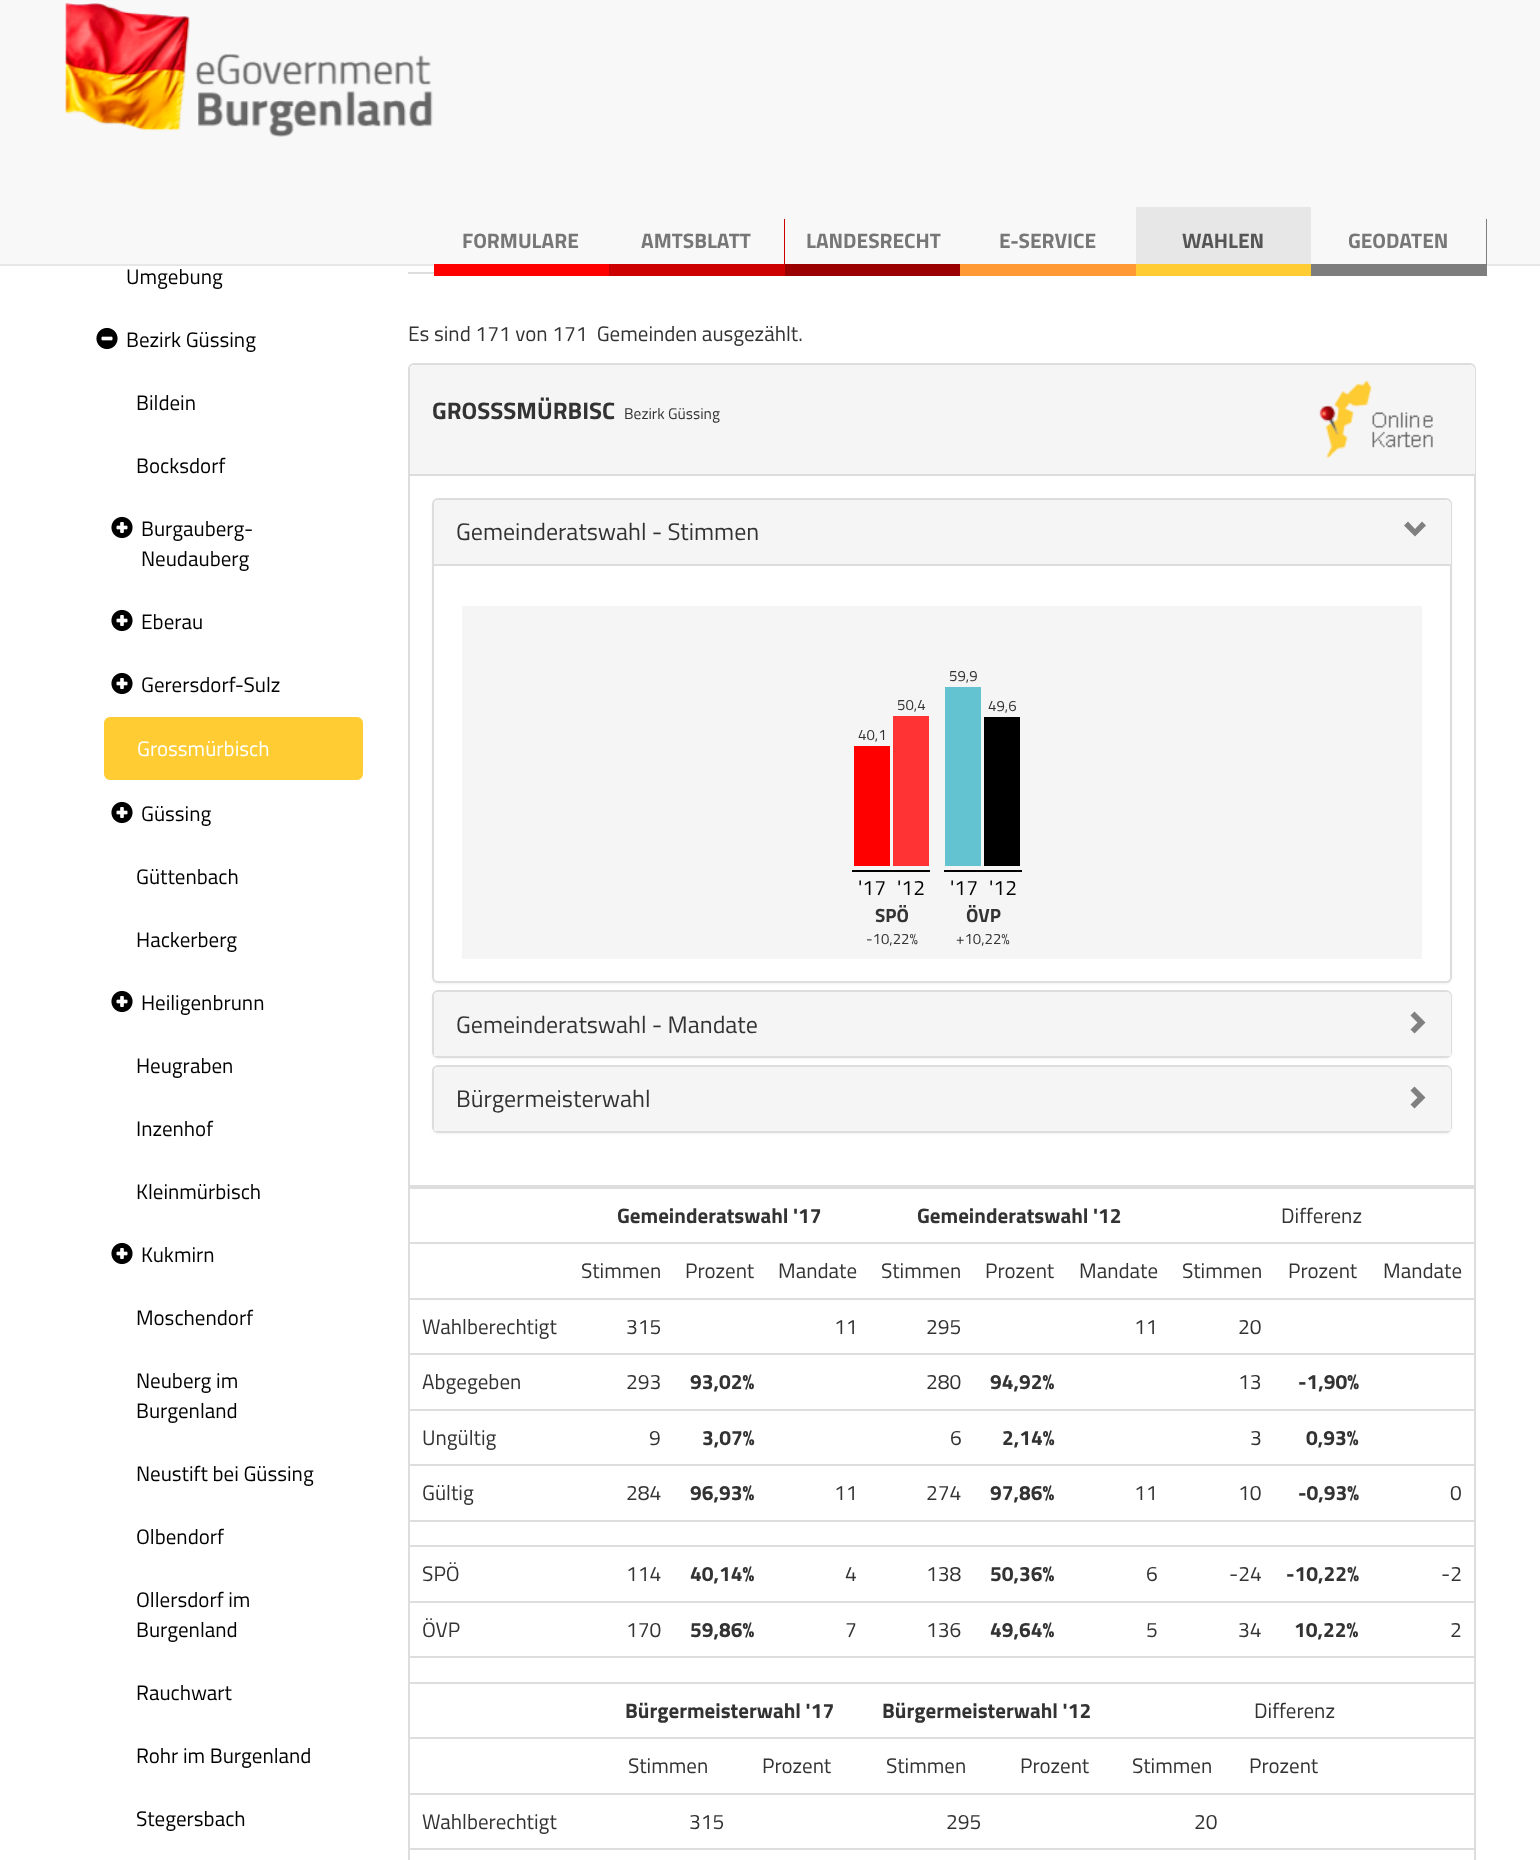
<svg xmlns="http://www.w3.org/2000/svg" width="1540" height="1860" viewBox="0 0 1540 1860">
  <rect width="100%" height="100%" fill="#fff"/>
  <path d="M0 0h1540v264H0z" fill="#f8f8f8"/>
  <path d="M0 264h1540v2H0z" fill="#e7e7e7"/>
  <image x="65" y="3" width="368" height="134" href="img/1.png"/>
  <path d="M434 264h175v12H434z" fill="#fe0000"/>
  <path d="M609 264V276H785V219H784V264Z" fill="#cc0001"/>
  <path d="M785 264h175v12H785z" fill="#9a0000"/>
  <path d="M960 264V276H1136V219V264Z" fill="#ff9934"/>
  <path d="M1136 264h175v12H1136z" fill="#fc3"/>
  <path d="M1136 207h175v57H1136z" fill="#e7e7e7"/>
  <path d="M1311 264V276H1487V219H1486V264Z" fill="#7d7d7d"/>
  <image x="96" y="327" width="22" height="23" href="img/2.png"/>
  <image x="111" y="516" width="22" height="23" href="img/3.png"/>
  <image x="111" y="609" width="22" height="23" href="img/3.png"/>
  <image x="111" y="672" width="22" height="23" href="img/3.png"/>
  <rect x="105" y="718" width="257" height="61" rx="5" fill="#fc3" stroke="#fc3" stroke-width="2"/>
  <image x="111" y="801" width="22" height="23" href="img/3.png"/>
  <image x="111" y="990" width="22" height="23" href="img/3.png"/>
  <image x="111" y="1242" width="22" height="23" href="img/3.png"/>
  <path d="M408 272h26v2H408z" fill="#ddd"/>
  <rect x="409" y="364" width="1066" height="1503" rx="5" fill="none" stroke="#ddd" stroke-width="2"/>
  <path d="M415 365H1470C1473 365 1475 367 1475 370V476H410V370C410 367 412 365 415 365Z" fill="#f5f5f5"/>
  <path d="M410 474h1065v2H410z" fill="#ddd"/>
  <image x="1318" y="380" width="115" height="78" href="img/4.png"/>
  <rect x="432" y="500" width="1020" height="484" rx="6" fill="#0000000d" filter="blur(1px)"/>
  <rect x="433" y="499" width="1018" height="483" rx="5" fill="#fff" stroke="#ddd" stroke-width="2"/>
  <path d="M439 500H1446C1449 500 1451 502 1451 505V564H434V505C434 502 436 500 439 500Z" fill="#f5f5f5"/>
  <path d="M1426 525.5L1415 536.5L1404 525.5L1408 521.5L1415 529L1422 521.5Z" fill="#808080"/>
  <path d="M434 564h1017v2H434z" fill="#ddd"/>
  <path d="M462 606h960v353H462z" fill="#f5f5f5"/>
  <path d="M893 716h36v150H893z" fill="#f33"/>
  <path d="M852 870h78v2H852z" fill="#000"/>
  <path d="M854 746h36v120H854z" fill="#f00"/>
  <path d="M944 870h78v2H944z" fill="#000"/>
  <path d="M945 687h36v179H945z" fill="#63c3d0"/>
  <path d="M984 717h36v149H984z" fill="#000"/>
  <rect x="432" y="992" width="1020" height="67" rx="6" fill="#0000000d" filter="blur(1px)"/>
  <rect x="433" y="991" width="1018" height="66" rx="5" fill="#fff" stroke="#ddd" stroke-width="2"/>
  <path d="M439 992H1446C1449 992 1451 994 1451 997V1056H434V997C434 994 436 992 439 992Z" fill="#f5f5f5"/>
  <path d="M1425.5 1022.5L1414.5 1033.5L1410.5 1029.5L1417.5 1022.5L1410.5 1015.5L1414.5 1011.5Z" fill="#808080"/>
  <rect x="432" y="1067" width="1020" height="67" rx="6" fill="#0000000d" filter="blur(1px)"/>
  <rect x="433" y="1066" width="1018" height="66" rx="5" fill="#fff" stroke="#ddd" stroke-width="2"/>
  <path d="M439 1067H1446C1449 1067 1451 1069 1451 1072V1131H434V1072C434 1069 436 1067 439 1067Z" fill="#f5f5f5"/>
  <path d="M1425.5 1097.5L1414.5 1108.5L1410.5 1104.5L1417.5 1097.5L1410.5 1090.5L1414.5 1086.5Z" fill="#808080"/>
  <path d="M410 1185h1065v2H410z" fill="#ddd"/>
  <path d="M410 1187h1065v2H410z" fill="#ddd"/>
  <path d="M410 1242h1065v2H410z" fill="#ddd"/>
  <path d="M410 1298h1065v2H410z" fill="#ddd"/>
  <path d="M410 1353h1065v2H410z" fill="#ddd"/>
  <path d="M410 1409h1065v2H410z" fill="#ddd"/>
  <path d="M410 1464h1065v2H410z" fill="#ddd"/>
  <path d="M410 1520h1065v2H410z" fill="#ddd"/>
  <path d="M410 1545h1065v2H410z" fill="#ddd"/>
  <path d="M410 1601h1065v2H410z" fill="#ddd"/>
  <path d="M410 1656h1065v2H410z" fill="#ddd"/>
  <path d="M410 1682h1065v2H410z" fill="#ddd"/>
  <path d="M410 1737h1065v2H410z" fill="#ddd"/>
  <path d="M410 1793h1065v2H410z" fill="#ddd"/>
  <path d="M410 1848h1065v2H410z" fill="#ddd"/>
  <g font-family="Titillium Web" font-size="21" font-weight="bold" fill="#777">
    <text x="462" y="248">FORMULARE</text>
    <text x="641" y="248">AMTSBLATT</text>
    <text x="806" y="248">LANDESRECHT</text>
    <text x="999" y="248">E-SERVICE</text>
  </g>
  <text x="1182" y="248" font-family="Titillium Web" font-size="21" font-weight="bold" fill="#555">WAHLEN</text>
  <text x="1348" y="248" font-family="Titillium Web" font-size="21" font-weight="bold" fill="#777">GEODATEN</text>
  <g font-family="Titillium Web" font-size="21" fill="#000">
    <text x="126" y="284">Umgebung</text>
    <text x="126" y="347">Bezirk Güssing</text>
    <text x="136" y="410">Bildein</text>
    <text x="136" y="473">Bocksdorf</text>
    <text x="141" y="536">Burgauberg-</text>
    <text x="141" y="566">Neudauberg</text>
    <text x="141" y="629">Eberau</text>
    <text x="141" y="692">Gerersdorf-Sulz</text>
  </g>
  <text x="137" y="756" font-family="Titillium Web" font-size="21" fill="#fff">Grossmürbisch</text>
  <g font-family="Titillium Web" font-size="21" fill="#000">
    <text x="141" y="821">Güssing</text>
    <text x="136" y="884">Güttenbach</text>
    <text x="136" y="947">Hackerberg</text>
    <text x="141" y="1010">Heiligenbrunn</text>
    <text x="136" y="1073">Heugraben</text>
    <text x="136" y="1136">Inzenhof</text>
    <text x="136" y="1199">Kleinmürbisch</text>
    <text x="141" y="1262">Kukmirn</text>
    <text x="136" y="1325">Moschendorf</text>
    <text x="136" y="1388">Neuberg im</text>
    <text x="136" y="1418">Burgenland</text>
    <text x="136" y="1481">Neustift bei Güssing</text>
    <text x="136" y="1544">Olbendorf</text>
    <text x="136" y="1607">Ollersdorf im</text>
    <text x="136" y="1637">Burgenland</text>
    <text x="136" y="1700">Rauchwart</text>
    <text x="136" y="1763">Rohr im Burgenland</text>
    <text x="136" y="1826">Stegersbach</text>
  </g>
  <text x="408" y="341" font-family="Titillium Web" font-size="21" fill="#333" xml:space="preserve">Es sind 171 von 171  Gemeinden ausgezählt.</text>
  <text x="432" y="419" font-family="Titillium Web" font-size="24" font-weight="bold" fill="#333">GROSSSMÜRBISC</text>
  <text x="624" y="419" font-family="Titillium Web" font-size="15.5" fill="#333">Bezirk Güssing</text>
  <text x="456" y="540" font-family="Titillium Web" font-size="24" fill="#333">Gemeinderatswahl - Stimmen</text>
  <g font-family="Titillium Web" font-size="15" fill="#333">
    <text x="897" y="710">50,4</text>
    <text x="858" y="740">40,1</text>
  </g>
  <g font-family="Titillium Web" font-size="21" fill="#000">
    <text x="858" y="895">'17</text>
    <text x="897" y="895">'12</text>
  </g>
  <text x="875" y="922" font-family="Titillium Web" font-size="19" font-weight="bold" fill="#333">SPÖ</text>
  <g font-family="Titillium Web" font-size="15" fill="#333">
    <text x="866" y="944">-10,22%</text>
    <text x="949" y="681">59,9</text>
    <text x="988" y="711">49,6</text>
  </g>
  <g font-family="Titillium Web" font-size="21" fill="#000">
    <text x="950" y="895">'17</text>
    <text x="989" y="895">'12</text>
  </g>
  <text x="966" y="922" font-family="Titillium Web" font-size="19" font-weight="bold" fill="#333">ÖVP</text>
  <text x="956" y="944" font-family="Titillium Web" font-size="15" fill="#333">+10,22%</text>
  <g font-family="Titillium Web" font-size="24" fill="#333">
    <text x="456" y="1033">Gemeinderatswahl - Mandate</text>
    <text x="456" y="1107">Bürgermeisterwahl</text>
  </g>
  <g font-family="Titillium Web" font-size="21" font-weight="bold" fill="#333">
    <text x="617" y="1223">Gemeinderatswahl '17</text>
    <text x="917" y="1223">Gemeinderatswahl '12</text>
  </g>
  <g font-family="Titillium Web" font-size="21" fill="#333">
    <text x="1281" y="1223">Differenz</text>
    <text x="581" y="1278">Stimmen</text>
    <text x="685" y="1278">Prozent</text>
    <text x="778" y="1278">Mandate</text>
    <text x="881" y="1278">Stimmen</text>
    <text x="985" y="1278">Prozent</text>
    <text x="1079" y="1278">Mandate</text>
    <text x="1182" y="1278">Stimmen</text>
    <text x="1288" y="1278">Prozent</text>
    <text x="1383" y="1278">Mandate</text>
    <text x="422" y="1334">Wahlberechtigt</text>
    <text x="626" y="1334">315</text>
    <text x="834" y="1334">11</text>
    <text x="926" y="1334">295</text>
    <text x="1134" y="1334">11</text>
    <text x="1238" y="1334">20</text>
    <text x="422" y="1389">Abgegeben</text>
    <text x="626" y="1389">293</text>
  </g>
  <text x="690" y="1389" font-family="Titillium Web" font-size="21" font-weight="bold" fill="#333">93,02%</text>
  <text x="926" y="1389" font-family="Titillium Web" font-size="21" fill="#333">280</text>
  <text x="990" y="1389" font-family="Titillium Web" font-size="21" font-weight="bold" fill="#333">94,92%</text>
  <text x="1238" y="1389" font-family="Titillium Web" font-size="21" fill="#333">13</text>
  <text x="1298" y="1389" font-family="Titillium Web" font-size="21" font-weight="bold" fill="#333">-1,90%</text>
  <g font-family="Titillium Web" font-size="21" fill="#333">
    <text x="422" y="1445">Ungültig</text>
    <text x="649" y="1445">9</text>
  </g>
  <text x="702" y="1445" font-family="Titillium Web" font-size="21" font-weight="bold" fill="#333">3,07%</text>
  <text x="950" y="1445" font-family="Titillium Web" font-size="21" fill="#333">6</text>
  <text x="1002" y="1445" font-family="Titillium Web" font-size="21" font-weight="bold" fill="#333">2,14%</text>
  <text x="1250" y="1445" font-family="Titillium Web" font-size="21" fill="#333">3</text>
  <text x="1306" y="1445" font-family="Titillium Web" font-size="21" font-weight="bold" fill="#333">0,93%</text>
  <g font-family="Titillium Web" font-size="21" fill="#333">
    <text x="422" y="1500">Gültig</text>
    <text x="626" y="1500">284</text>
  </g>
  <text x="690" y="1500" font-family="Titillium Web" font-size="21" font-weight="bold" fill="#333">96,93%</text>
  <g font-family="Titillium Web" font-size="21" fill="#333">
    <text x="834" y="1500">11</text>
    <text x="926" y="1500">274</text>
  </g>
  <text x="990" y="1500" font-family="Titillium Web" font-size="21" font-weight="bold" fill="#333">97,86%</text>
  <g font-family="Titillium Web" font-size="21" fill="#333">
    <text x="1134" y="1500">11</text>
    <text x="1238" y="1500">10</text>
  </g>
  <text x="1298" y="1500" font-family="Titillium Web" font-size="21" font-weight="bold" fill="#333">-0,93%</text>
  <g font-family="Titillium Web" font-size="21" fill="#333">
    <text x="1450" y="1500">0</text>
    <text x="422" y="1581">SPÖ</text>
    <text x="626" y="1581">114</text>
  </g>
  <text x="690" y="1581" font-family="Titillium Web" font-size="21" font-weight="bold" fill="#333">40,14%</text>
  <g font-family="Titillium Web" font-size="21" fill="#333">
    <text x="845" y="1581">4</text>
    <text x="926" y="1581">138</text>
  </g>
  <text x="990" y="1581" font-family="Titillium Web" font-size="21" font-weight="bold" fill="#333">50,36%</text>
  <g font-family="Titillium Web" font-size="21" fill="#333">
    <text x="1146" y="1581">6</text>
    <text x="1229" y="1581">-24</text>
  </g>
  <text x="1286" y="1581" font-family="Titillium Web" font-size="21" font-weight="bold" fill="#333">-10,22%</text>
  <g font-family="Titillium Web" font-size="21" fill="#333">
    <text x="1441" y="1581">-2</text>
    <text x="422" y="1637">ÖVP</text>
    <text x="626" y="1637">170</text>
  </g>
  <text x="690" y="1637" font-family="Titillium Web" font-size="21" font-weight="bold" fill="#333">59,86%</text>
  <g font-family="Titillium Web" font-size="21" fill="#333">
    <text x="845" y="1637">7</text>
    <text x="926" y="1637">136</text>
  </g>
  <text x="990" y="1637" font-family="Titillium Web" font-size="21" font-weight="bold" fill="#333">49,64%</text>
  <g font-family="Titillium Web" font-size="21" fill="#333">
    <text x="1146" y="1637">5</text>
    <text x="1238" y="1637">34</text>
  </g>
  <text x="1294" y="1637" font-family="Titillium Web" font-size="21" font-weight="bold" fill="#333">10,22%</text>
  <text x="1450" y="1637" font-family="Titillium Web" font-size="21" fill="#333">2</text>
  <g font-family="Titillium Web" font-size="21" font-weight="bold" fill="#333">
    <text x="625" y="1718">Bürgermeisterwahl '17</text>
    <text x="882" y="1718">Bürgermeisterwahl '12</text>
  </g>
  <g font-family="Titillium Web" font-size="21" fill="#333">
    <text x="1254" y="1718">Differenz</text>
    <text x="628" y="1773">Stimmen</text>
    <text x="762" y="1773">Prozent</text>
    <text x="886" y="1773">Stimmen</text>
    <text x="1020" y="1773">Prozent</text>
    <text x="1132" y="1773">Stimmen</text>
    <text x="1249" y="1773">Prozent</text>
    <text x="422" y="1829">Wahlberechtigt</text>
    <text x="689" y="1829">315</text>
    <text x="946" y="1829">295</text>
    <text x="1194" y="1829">20</text>
  </g>
</svg>
